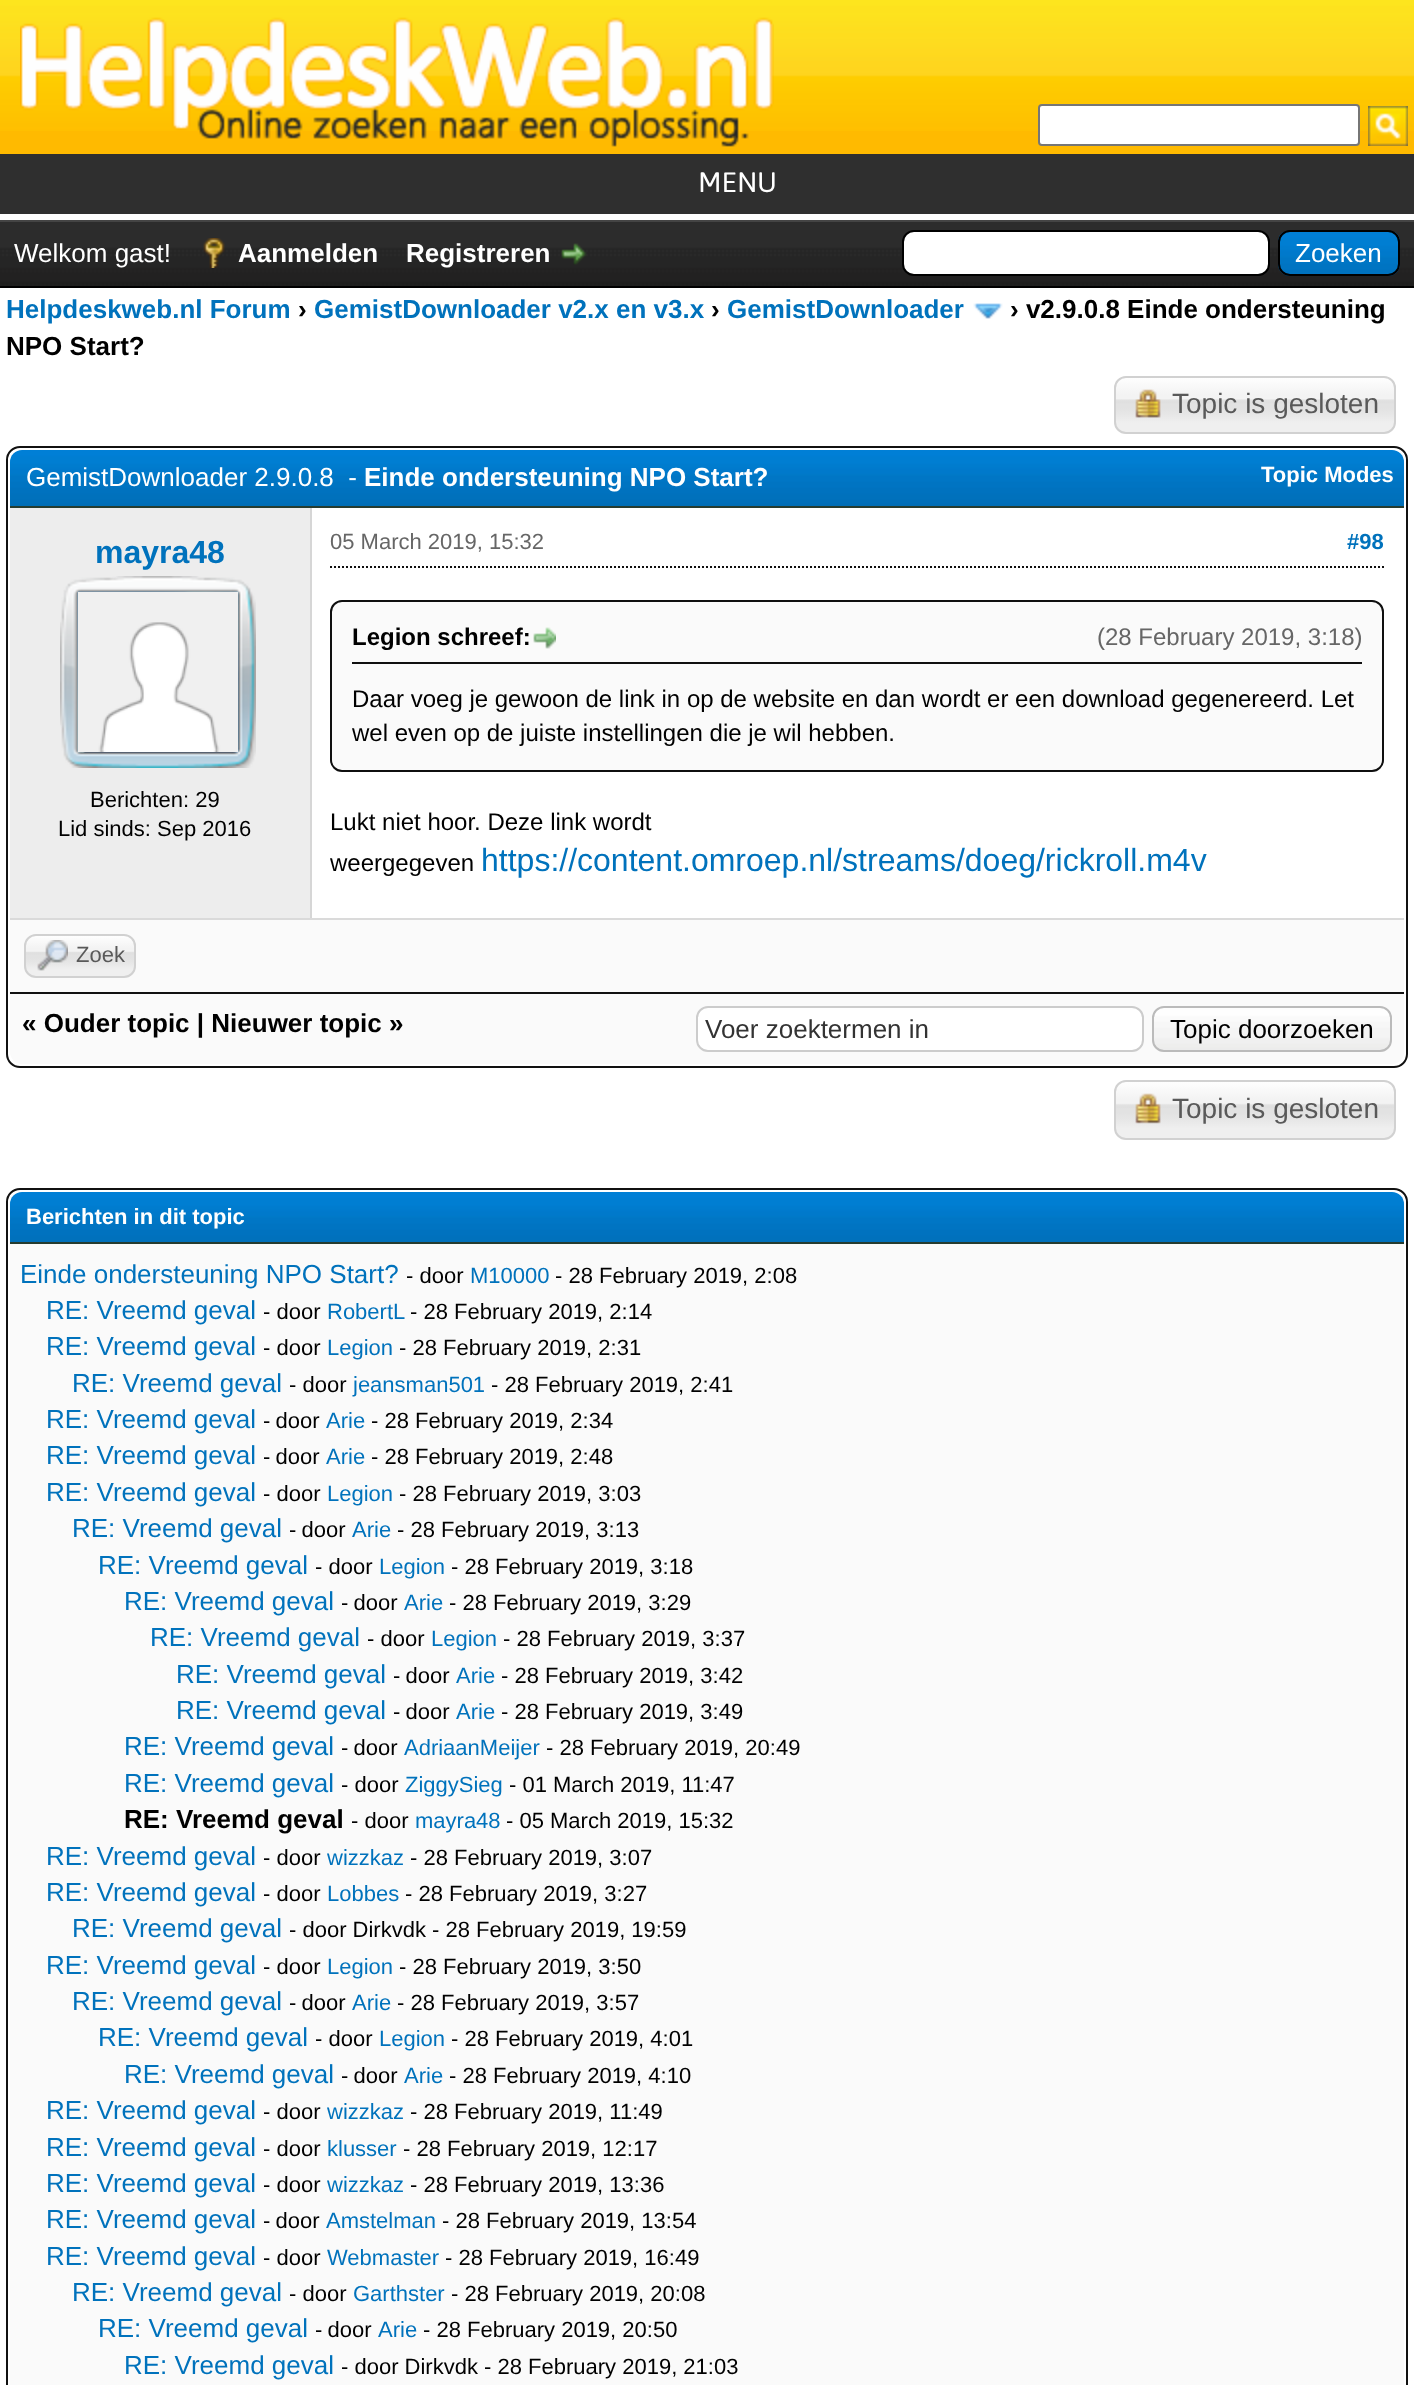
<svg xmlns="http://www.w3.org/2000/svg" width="1414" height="2385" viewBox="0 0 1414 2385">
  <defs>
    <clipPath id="clip1"><rect x="1114" y="376" width="282" height="58" rx="12"/></clipPath>
    <linearGradient id="g1" gradientUnits="userSpaceOnUse" x1="1255" y1="378" x2="1255" y2="432"><stop offset="0" stop-color="#fefefe"/><stop offset="0.31" stop-color="#f3f3f3"/><stop offset="0.38" stop-color="#f3f3f3"/><stop offset="0.41" stop-color="#e2e2e2"/><stop offset="0.45" stop-color="#dfdfdf"/><stop offset="0.48" stop-color="#e2e2e2"/><stop offset="0.55" stop-color="#e2e2e2"/><stop offset="0.66" stop-color="#e6e6e6"/><stop offset="0.83" stop-color="#efefef"/><stop offset="1" stop-color="#efefef"/></linearGradient>
    <clipPath id="clip2"><rect x="24" y="934" width="112" height="44" rx="12"/></clipPath>
    <linearGradient id="g2" gradientUnits="userSpaceOnUse" x1="80" y1="936" x2="80" y2="976"><stop offset="0" stop-color="#fefefe"/><stop offset="0.31" stop-color="#f3f3f3"/><stop offset="0.38" stop-color="#f3f3f3"/><stop offset="0.41" stop-color="#e2e2e2"/><stop offset="0.45" stop-color="#dfdfdf"/><stop offset="0.48" stop-color="#e2e2e2"/><stop offset="0.55" stop-color="#e2e2e2"/><stop offset="0.66" stop-color="#e6e6e6"/><stop offset="0.83" stop-color="#efefef"/><stop offset="1" stop-color="#efefef"/></linearGradient>
    <clipPath id="clip3"><rect x="1114" y="1080" width="282" height="60" rx="12"/></clipPath>
    <linearGradient id="g3" gradientUnits="userSpaceOnUse" x1="1255" y1="1082" x2="1255" y2="1138"><stop offset="0" stop-color="#fefefe"/><stop offset="0.31" stop-color="#f3f3f3"/><stop offset="0.38" stop-color="#f3f3f3"/><stop offset="0.41" stop-color="#e2e2e2"/><stop offset="0.45" stop-color="#dfdfdf"/><stop offset="0.48" stop-color="#e2e2e2"/><stop offset="0.55" stop-color="#e2e2e2"/><stop offset="0.66" stop-color="#e6e6e6"/><stop offset="0.83" stop-color="#efefef"/><stop offset="1" stop-color="#efefef"/></linearGradient>
  </defs>
  <rect width="100%" height="100%" fill="#fff"/>
  <path d="M0 131h1414v23H0z" fill="#ffba00"/>
  <image x="0" y="0" width="1414" height="131" href="img/1.png"/>
  <image x="20" y="17" width="754" height="130" href="img/2.png"/>
  <rect x="1039" y="105" width="320" height="40" rx="3" fill="#fff" stroke="#767676" stroke-width="2"/>
  <image x="1368" y="106" width="40" height="40" href="img/3.png"/>
  <path d="M0 154h1414v60H0z" fill="#2f2f2f"/>
  <image x="0" y="222" width="1414" height="64" href="img/4.png"/>
  <path d="M0 220h1414v2H0z" fill="#444"/>
  <path d="M0 286h1414v2H0z" fill="#000"/>
  <image x="203" y="238" width="22" height="30" href="img/5.png"/>
  <image x="561" y="243" width="26" height="22" href="img/6.png"/>
  <rect x="903" y="231" width="366" height="44" rx="11" fill="#fff" stroke="#000" stroke-width="2"/>
  <image x="1278" y="232" width="122" height="44" href="img/7.png"/>
  <rect x="1279" y="231" width="120" height="44" rx="11" fill="none" stroke="#000" stroke-width="2"/>
  <image x="973" y="303" width="30" height="16" href="img/8.png"/>
  <g clip-path="url(#clip1)">
    <path d="M1114 378h282v54H1114z" fill="url(#g1)"/>
  </g>
  <rect x="1115" y="377" width="280" height="56" rx="11" fill="none" stroke="#d1d1d1" stroke-width="2"/>
  <image x="1135" y="389" width="26" height="29" href="img/9.png"/>
  <rect x="7" y="447" width="1400" height="620" rx="13" fill="none" stroke="#111" stroke-width="2"/>
  <image x="10" y="450" width="1394" height="56" href="img/10.png"/>
  <path d="M10 506h1394v2H10z" fill="#263c30"/>
  <path d="M10 508h300v410H10z" fill="#ededed"/>
  <path d="M310 508h2v410H310z" fill="#d6d6d6"/>
  <image x="60" y="576" width="196" height="192" href="img/11.png"/>
  <path d="M330 567H1384" fill="none" stroke="#0f0f0f" stroke-width="2" stroke-dasharray="2 2"/>
  <rect x="331" y="601" width="1052" height="170" rx="11" fill="#fafafa" stroke="#0f0f0f" stroke-width="2"/>
  <path d="M352 662h1010v2H352z" fill="#0f0f0f"/>
  <image x="533" y="627" width="23" height="22" href="img/12.png"/>
  <path d="M10 920h1394v72H10z" fill="#fafafa"/>
  <path d="M10 918h1394v2H10z" fill="#dadada"/>
  <path d="M10 992h1394v2H10z" fill="#111"/>
  <g clip-path="url(#clip2)">
    <path d="M24 936h112v40H24z" fill="url(#g2)"/>
  </g>
  <rect x="25" y="935" width="110" height="42" rx="11" fill="none" stroke="#d1d1d1" stroke-width="2"/>
  <image x="37" y="940" width="31" height="31" href="img/13.png"/>
  <path d="M10 994H1404V1052C1404 1058.5 1398.5 1064 1392 1064H22C15.5 1064 10 1058.5 10 1052Z" fill="#fafafa"/>
  <rect x="697" y="1007" width="446" height="44" rx="11" fill="#fff" stroke="#ccc" stroke-width="2"/>
  <image x="1152" y="1008" width="240" height="44" href="img/14.png"/>
  <rect x="1153" y="1007" width="238" height="44" rx="11" fill="none" stroke="#bbb" stroke-width="2"/>
  <g clip-path="url(#clip3)">
    <path d="M1114 1082h282v56H1114z" fill="url(#g3)"/>
  </g>
  <rect x="1115" y="1081" width="280" height="58" rx="11" fill="none" stroke="#d1d1d1" stroke-width="2"/>
  <image x="1135" y="1093" width="26" height="31" href="img/15.png"/>
  <rect x="7" y="1189" width="1400" height="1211" rx="13" fill="none" stroke="#111" stroke-width="2"/>
  <image x="10" y="1192" width="1394" height="50" href="img/16.png"/>
  <path d="M10 1242h1394v2H10z" fill="#263c30"/>
  <path d="M10 1244h1394v1141H10z" fill="#fafafa"/>
  <text x="698" y="192" font-family="Asap" font-size="28" fill="#fff">MENU</text>
  <text x="14" y="262" font-family="Liberation Sans" font-size="26" fill="#fff">Welkom gast!</text>
  <g font-family="Liberation Sans" font-size="26" font-weight="bold" fill="#fff">
    <text x="238" y="262">Aanmelden</text>
    <text x="406" y="262">Registreren</text>
  </g>
  <text x="1295" y="262" font-family="Liberation Sans" font-size="26" fill="#fff">Zoeken</text>
  <text x="6" y="318" font-family="Liberation Sans" font-size="26" font-weight="bold" fill="#0072bc">Helpdeskweb.nl Forum</text>
  <text x="298" y="318" font-family="Liberation Sans" font-size="26" font-weight="bold" fill="#000">›</text>
  <text x="314" y="318" font-family="Liberation Sans" font-size="26" font-weight="bold" fill="#0072bc">GemistDownloader v2.x en v3.x</text>
  <text x="711" y="318" font-family="Liberation Sans" font-size="26" font-weight="bold" fill="#000">›</text>
  <text x="727" y="318" font-family="Liberation Sans" font-size="26" font-weight="bold" fill="#0072bc">GemistDownloader</text>
  <g font-family="Liberation Sans" font-size="26" font-weight="bold" fill="#000">
    <text x="1010" y="318">› v2.9.0.8 Einde ondersteuning</text>
    <text x="6" y="355">NPO Start?</text>
  </g>
  <text x="1172" y="413" font-family="Liberation Sans" font-size="28" fill="#595959">Topic is gesloten</text>
  <text x="26" y="486" font-family="Liberation Sans" font-size="26" fill="#fff" xml:space="preserve">GemistDownloader 2.9.0.8  -</text>
  <text x="364" y="486" font-family="Liberation Sans" font-size="26" font-weight="bold" fill="#fff">Einde ondersteuning NPO Start?</text>
  <text x="1261" y="482" font-family="Liberation Sans" font-size="22" font-weight="bold" fill="#fff">Topic Modes</text>
  <text x="95" y="563" font-family="Liberation Sans" font-size="32" font-weight="bold" fill="#0072bc">mayra48</text>
  <g font-family="Liberation Sans" font-size="22" fill="#000">
    <text x="90" y="807">Berichten: 29</text>
    <text x="58" y="836">Lid sinds: Sep 2016</text>
  </g>
  <text x="330" y="549" font-family="Liberation Sans" font-size="22" fill="#666">05 March 2019, 15:32</text>
  <text x="1347" y="549" font-family="Liberation Sans" font-size="22" font-weight="bold" fill="#0072bc">#98</text>
  <text x="352" y="645" font-family="Liberation Sans" font-size="24" font-weight="bold" fill="#000">Legion schreef:</text>
  <text x="1097" y="645" font-family="Liberation Sans" font-size="24" fill="#666">(28 February 2019, 3:18)</text>
  <g font-family="Liberation Sans" font-size="24" fill="#000">
    <text x="352" y="707">Daar voeg je gewoon de link in op de website en dan wordt er een download gegenereerd. Let</text>
    <text x="352" y="741">wel even op de juiste instellingen die je wil hebben.</text>
    <text x="330" y="830">Lukt niet hoor. Deze link wordt</text>
    <text x="330" y="871">weergegeven</text>
  </g>
  <text x="481" y="871" font-family="Liberation Sans" font-size="32" fill="#0072bc">https://content.omroep.nl/streams/doeg/rickroll.m4v</text>
  <text x="76" y="962" font-family="Liberation Sans" font-size="22" fill="#595959">Zoek</text>
  <text x="22" y="1032" font-family="Liberation Sans" font-size="26" font-weight="bold" fill="#000">« Ouder topic | Nieuwer topic »</text>
  <text x="705" y="1038" font-family="Liberation Sans" font-size="26" fill="#333">Voer zoektermen in</text>
  <text x="1170" y="1038" font-family="Liberation Sans" font-size="26" fill="#000">Topic doorzoeken</text>
  <text x="1172" y="1118" font-family="Liberation Sans" font-size="28" fill="#595959">Topic is gesloten</text>
  <text x="26" y="1224" font-family="Liberation Sans" font-size="22" font-weight="bold" fill="#fff">Berichten in dit topic</text>
  <text x="20" y="1283" font-family="Liberation Sans" font-size="26" fill="#0072bc">Einde ondersteuning NPO Start?</text>
  <text x="406" y="1283" font-family="Liberation Sans" font-size="22" fill="#000">- door</text>
  <text x="470" y="1283" font-family="Liberation Sans" font-size="22" fill="#0072bc">M10000</text>
  <text x="555" y="1283" font-family="Liberation Sans" font-size="22" fill="#000">- 28 February 2019, 2:08</text>
  <text x="46" y="1319" font-family="Liberation Sans" font-size="26" fill="#0072bc">RE: Vreemd geval</text>
  <text x="263" y="1319" font-family="Liberation Sans" font-size="22" fill="#000">- door</text>
  <text x="327" y="1319" font-family="Liberation Sans" font-size="22" fill="#0072bc">RobertL</text>
  <text x="410" y="1319" font-family="Liberation Sans" font-size="22" fill="#000">- 28 February 2019, 2:14</text>
  <text x="46" y="1355" font-family="Liberation Sans" font-size="26" fill="#0072bc">RE: Vreemd geval</text>
  <text x="263" y="1355" font-family="Liberation Sans" font-size="22" fill="#000">- door</text>
  <text x="327" y="1355" font-family="Liberation Sans" font-size="22" fill="#0072bc">Legion</text>
  <text x="399" y="1355" font-family="Liberation Sans" font-size="22" fill="#000">- 28 February 2019, 2:31</text>
  <text x="72" y="1392" font-family="Liberation Sans" font-size="26" fill="#0072bc">RE: Vreemd geval</text>
  <text x="289" y="1392" font-family="Liberation Sans" font-size="22" fill="#000">- door</text>
  <text x="353" y="1392" font-family="Liberation Sans" font-size="22" fill="#0072bc">jeansman501</text>
  <text x="491" y="1392" font-family="Liberation Sans" font-size="22" fill="#000">- 28 February 2019, 2:41</text>
  <text x="46" y="1428" font-family="Liberation Sans" font-size="26" fill="#0072bc">RE: Vreemd geval</text>
  <text x="263" y="1428" word-spacing="-1" font-family="Liberation Sans" font-size="22" fill="#000">- door</text>
  <text x="326" y="1428" font-family="Liberation Sans" font-size="22" fill="#0072bc">Arie</text>
  <text x="371" y="1428" font-family="Liberation Sans" font-size="22" fill="#000">- 28 February 2019, 2:34</text>
  <text x="46" y="1464" font-family="Liberation Sans" font-size="26" fill="#0072bc">RE: Vreemd geval</text>
  <text x="263" y="1464" word-spacing="-1" font-family="Liberation Sans" font-size="22" fill="#000">- door</text>
  <text x="326" y="1464" font-family="Liberation Sans" font-size="22" fill="#0072bc">Arie</text>
  <text x="371" y="1464" font-family="Liberation Sans" font-size="22" fill="#000">- 28 February 2019, 2:48</text>
  <text x="46" y="1501" font-family="Liberation Sans" font-size="26" fill="#0072bc">RE: Vreemd geval</text>
  <text x="263" y="1501" font-family="Liberation Sans" font-size="22" fill="#000">- door</text>
  <text x="327" y="1501" font-family="Liberation Sans" font-size="22" fill="#0072bc">Legion</text>
  <text x="399" y="1501" font-family="Liberation Sans" font-size="22" fill="#000">- 28 February 2019, 3:03</text>
  <text x="72" y="1537" font-family="Liberation Sans" font-size="26" fill="#0072bc">RE: Vreemd geval</text>
  <text x="289" y="1537" word-spacing="-1" font-family="Liberation Sans" font-size="22" fill="#000">- door</text>
  <text x="352" y="1537" font-family="Liberation Sans" font-size="22" fill="#0072bc">Arie</text>
  <text x="397" y="1537" font-family="Liberation Sans" font-size="22" fill="#000">- 28 February 2019, 3:13</text>
  <text x="98" y="1574" font-family="Liberation Sans" font-size="26" fill="#0072bc">RE: Vreemd geval</text>
  <text x="315" y="1574" font-family="Liberation Sans" font-size="22" fill="#000">- door</text>
  <text x="379" y="1574" font-family="Liberation Sans" font-size="22" fill="#0072bc">Legion</text>
  <text x="451" y="1574" font-family="Liberation Sans" font-size="22" fill="#000">- 28 February 2019, 3:18</text>
  <text x="124" y="1610" font-family="Liberation Sans" font-size="26" fill="#0072bc">RE: Vreemd geval</text>
  <text x="341" y="1610" word-spacing="-1" font-family="Liberation Sans" font-size="22" fill="#000">- door</text>
  <text x="404" y="1610" font-family="Liberation Sans" font-size="22" fill="#0072bc">Arie</text>
  <text x="449" y="1610" font-family="Liberation Sans" font-size="22" fill="#000">- 28 February 2019, 3:29</text>
  <text x="150" y="1646" font-family="Liberation Sans" font-size="26" fill="#0072bc">RE: Vreemd geval</text>
  <text x="367" y="1646" font-family="Liberation Sans" font-size="22" fill="#000">- door</text>
  <text x="431" y="1646" font-family="Liberation Sans" font-size="22" fill="#0072bc">Legion</text>
  <text x="503" y="1646" font-family="Liberation Sans" font-size="22" fill="#000">- 28 February 2019, 3:37</text>
  <text x="176" y="1683" font-family="Liberation Sans" font-size="26" fill="#0072bc">RE: Vreemd geval</text>
  <text x="393" y="1683" word-spacing="-1" font-family="Liberation Sans" font-size="22" fill="#000">- door</text>
  <text x="456" y="1683" font-family="Liberation Sans" font-size="22" fill="#0072bc">Arie</text>
  <text x="501" y="1683" font-family="Liberation Sans" font-size="22" fill="#000">- 28 February 2019, 3:42</text>
  <text x="176" y="1719" font-family="Liberation Sans" font-size="26" fill="#0072bc">RE: Vreemd geval</text>
  <text x="393" y="1719" word-spacing="-1" font-family="Liberation Sans" font-size="22" fill="#000">- door</text>
  <text x="456" y="1719" font-family="Liberation Sans" font-size="22" fill="#0072bc">Arie</text>
  <text x="501" y="1719" font-family="Liberation Sans" font-size="22" fill="#000">- 28 February 2019, 3:49</text>
  <text x="124" y="1755" font-family="Liberation Sans" font-size="26" fill="#0072bc">RE: Vreemd geval</text>
  <text x="341" y="1755" word-spacing="-1" font-family="Liberation Sans" font-size="22" fill="#000">- door</text>
  <text x="404" y="1755" font-family="Liberation Sans" font-size="22" fill="#0072bc">AdriaanMeijer</text>
  <text x="546" y="1755" font-family="Liberation Sans" font-size="22" fill="#000">- 28 February 2019, 20:49</text>
  <text x="124" y="1792" font-family="Liberation Sans" font-size="26" fill="#0072bc">RE: Vreemd geval</text>
  <text x="341" y="1792" font-family="Liberation Sans" font-size="22" fill="#000">- door</text>
  <text x="405" y="1792" font-family="Liberation Sans" font-size="22" fill="#0072bc">ZiggySieg</text>
  <text x="509" y="1792" font-family="Liberation Sans" font-size="22" fill="#000">- 01 March 2019, 11:47</text>
  <text x="124" y="1828" font-family="Liberation Sans" font-size="26" font-weight="bold" fill="#000">RE: Vreemd geval</text>
  <text x="351" y="1828" font-family="Liberation Sans" font-size="22" fill="#000">- door</text>
  <text x="415" y="1828" font-family="Liberation Sans" font-size="22" fill="#0072bc">mayra48</text>
  <text x="506" y="1828" font-family="Liberation Sans" font-size="22" fill="#000">- 05 March 2019, 15:32</text>
  <text x="46" y="1865" font-family="Liberation Sans" font-size="26" fill="#0072bc">RE: Vreemd geval</text>
  <text x="263" y="1865" font-family="Liberation Sans" font-size="22" fill="#000">- door</text>
  <text x="327" y="1865" font-family="Liberation Sans" font-size="22" fill="#0072bc">wizzkaz</text>
  <text x="410" y="1865" font-family="Liberation Sans" font-size="22" fill="#000">- 28 February 2019, 3:07</text>
  <text x="46" y="1901" font-family="Liberation Sans" font-size="26" fill="#0072bc">RE: Vreemd geval</text>
  <text x="263" y="1901" font-family="Liberation Sans" font-size="22" fill="#000">- door</text>
  <text x="327" y="1901" font-family="Liberation Sans" font-size="22" fill="#0072bc">Lobbes</text>
  <text x="405" y="1901" font-family="Liberation Sans" font-size="22" fill="#000">- 28 February 2019, 3:27</text>
  <text x="72" y="1937" font-family="Liberation Sans" font-size="26" fill="#0072bc">RE: Vreemd geval</text>
  <text x="289" y="1937" font-family="Liberation Sans" font-size="22" fill="#000">- door Dirkvdk - 28 February 2019, 19:59</text>
  <text x="46" y="1974" font-family="Liberation Sans" font-size="26" fill="#0072bc">RE: Vreemd geval</text>
  <text x="263" y="1974" font-family="Liberation Sans" font-size="22" fill="#000">- door</text>
  <text x="327" y="1974" font-family="Liberation Sans" font-size="22" fill="#0072bc">Legion</text>
  <text x="399" y="1974" font-family="Liberation Sans" font-size="22" fill="#000">- 28 February 2019, 3:50</text>
  <text x="72" y="2010" font-family="Liberation Sans" font-size="26" fill="#0072bc">RE: Vreemd geval</text>
  <text x="289" y="2010" word-spacing="-1" font-family="Liberation Sans" font-size="22" fill="#000">- door</text>
  <text x="352" y="2010" font-family="Liberation Sans" font-size="22" fill="#0072bc">Arie</text>
  <text x="397" y="2010" font-family="Liberation Sans" font-size="22" fill="#000">- 28 February 2019, 3:57</text>
  <text x="98" y="2046" font-family="Liberation Sans" font-size="26" fill="#0072bc">RE: Vreemd geval</text>
  <text x="315" y="2046" font-family="Liberation Sans" font-size="22" fill="#000">- door</text>
  <text x="379" y="2046" font-family="Liberation Sans" font-size="22" fill="#0072bc">Legion</text>
  <text x="451" y="2046" font-family="Liberation Sans" font-size="22" fill="#000">- 28 February 2019, 4:01</text>
  <text x="124" y="2083" font-family="Liberation Sans" font-size="26" fill="#0072bc">RE: Vreemd geval</text>
  <text x="341" y="2083" word-spacing="-1" font-family="Liberation Sans" font-size="22" fill="#000">- door</text>
  <text x="404" y="2083" font-family="Liberation Sans" font-size="22" fill="#0072bc">Arie</text>
  <text x="449" y="2083" font-family="Liberation Sans" font-size="22" fill="#000">- 28 February 2019, 4:10</text>
  <text x="46" y="2119" font-family="Liberation Sans" font-size="26" fill="#0072bc">RE: Vreemd geval</text>
  <text x="263" y="2119" font-family="Liberation Sans" font-size="22" fill="#000">- door</text>
  <text x="327" y="2119" font-family="Liberation Sans" font-size="22" fill="#0072bc">wizzkaz</text>
  <text x="410" y="2119" font-family="Liberation Sans" font-size="22" fill="#000">- 28 February 2019, 11:49</text>
  <text x="46" y="2156" font-family="Liberation Sans" font-size="26" fill="#0072bc">RE: Vreemd geval</text>
  <text x="263" y="2156" font-family="Liberation Sans" font-size="22" fill="#000">- door</text>
  <text x="327" y="2156" font-family="Liberation Sans" font-size="22" fill="#0072bc">klusser</text>
  <text x="403" y="2156" font-family="Liberation Sans" font-size="22" fill="#000">- 28 February 2019, 12:17</text>
  <text x="46" y="2192" font-family="Liberation Sans" font-size="26" fill="#0072bc">RE: Vreemd geval</text>
  <text x="263" y="2192" font-family="Liberation Sans" font-size="22" fill="#000">- door</text>
  <text x="327" y="2192" font-family="Liberation Sans" font-size="22" fill="#0072bc">wizzkaz</text>
  <text x="410" y="2192" font-family="Liberation Sans" font-size="22" fill="#000">- 28 February 2019, 13:36</text>
  <text x="46" y="2228" font-family="Liberation Sans" font-size="26" fill="#0072bc">RE: Vreemd geval</text>
  <text x="263" y="2228" word-spacing="-1" font-family="Liberation Sans" font-size="22" fill="#000">- door</text>
  <text x="326" y="2228" font-family="Liberation Sans" font-size="22" fill="#0072bc">Amstelman</text>
  <text x="442" y="2228" font-family="Liberation Sans" font-size="22" fill="#000">- 28 February 2019, 13:54</text>
  <text x="46" y="2265" font-family="Liberation Sans" font-size="26" fill="#0072bc">RE: Vreemd geval</text>
  <text x="263" y="2265" font-family="Liberation Sans" font-size="22" fill="#000">- door</text>
  <text x="327" y="2265" font-family="Liberation Sans" font-size="22" fill="#0072bc">Webmaster</text>
  <text x="445" y="2265" font-family="Liberation Sans" font-size="22" fill="#000">- 28 February 2019, 16:49</text>
  <text x="72" y="2301" font-family="Liberation Sans" font-size="26" fill="#0072bc">RE: Vreemd geval</text>
  <text x="289" y="2301" font-family="Liberation Sans" font-size="22" fill="#000">- door</text>
  <text x="353" y="2301" font-family="Liberation Sans" font-size="22" fill="#0072bc">Garthster</text>
  <text x="451" y="2301" font-family="Liberation Sans" font-size="22" fill="#000">- 28 February 2019, 20:08</text>
  <text x="98" y="2337" font-family="Liberation Sans" font-size="26" fill="#0072bc">RE: Vreemd geval</text>
  <text x="315" y="2337" word-spacing="-1" font-family="Liberation Sans" font-size="22" fill="#000">- door</text>
  <text x="378" y="2337" font-family="Liberation Sans" font-size="22" fill="#0072bc">Arie</text>
  <text x="423" y="2337" font-family="Liberation Sans" font-size="22" fill="#000">- 28 February 2019, 20:50</text>
  <text x="124" y="2374" font-family="Liberation Sans" font-size="26" fill="#0072bc">RE: Vreemd geval</text>
  <text x="341" y="2374" font-family="Liberation Sans" font-size="22" fill="#000">- door Dirkvdk - 28 February 2019, 21:03</text>
</svg>
